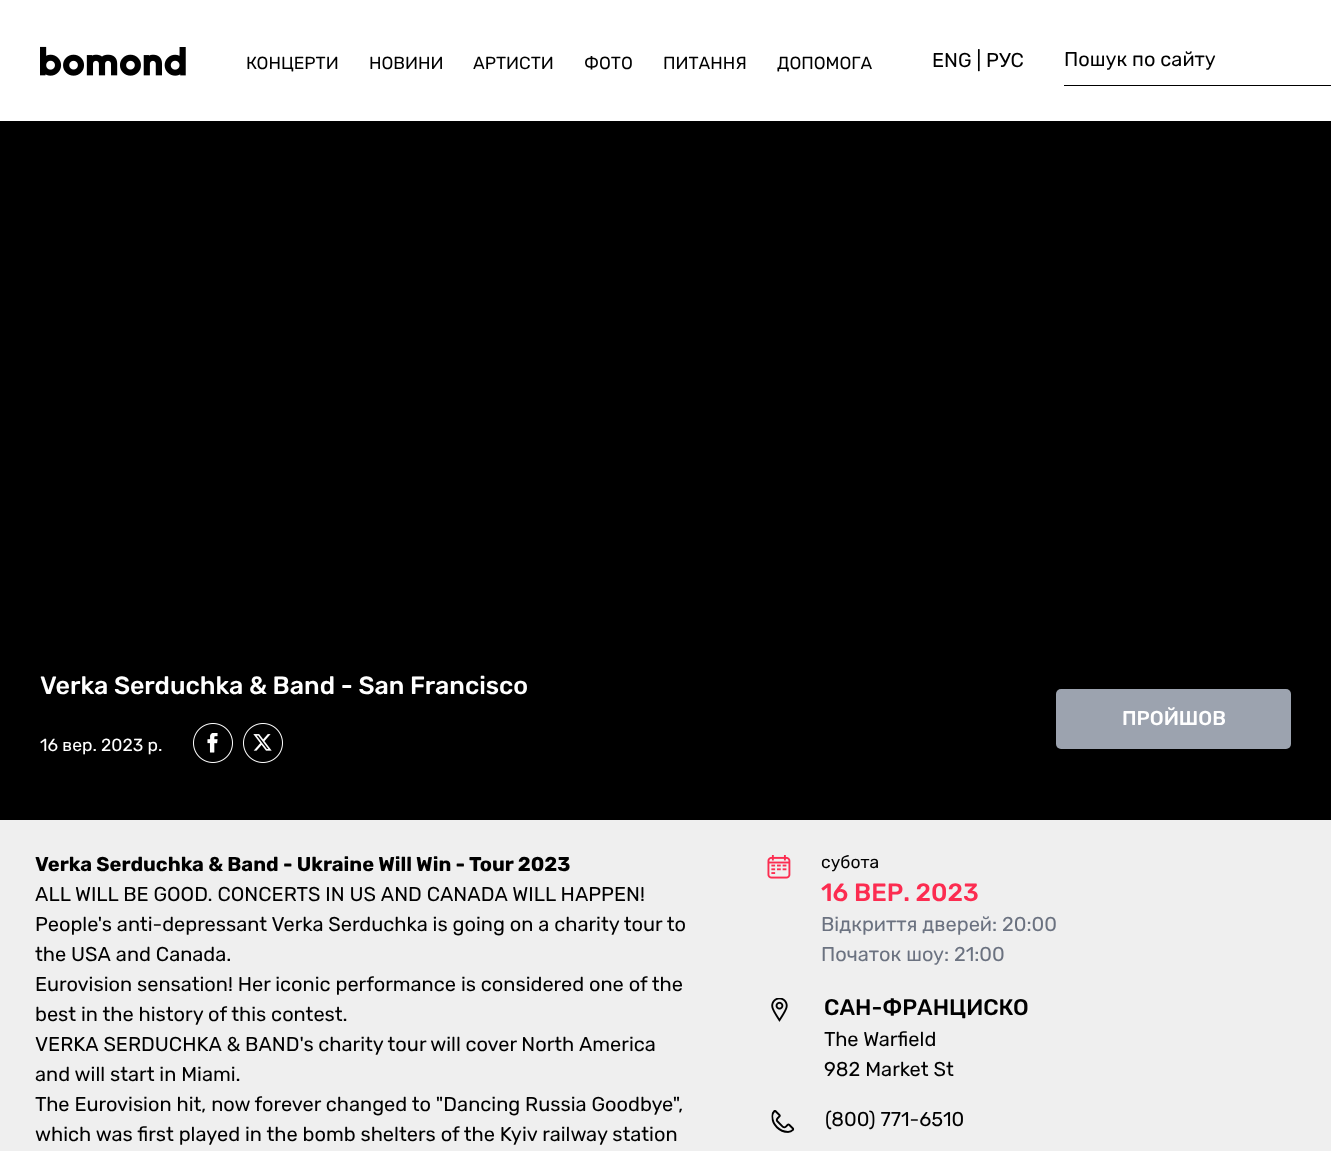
<svg xmlns="http://www.w3.org/2000/svg" width="1331" height="1151" viewBox="0 0 1331 1151">
  <rect width="100%" height="100%" fill="#efefef"/>
  <path d="M0 0h1331v121H0z" fill="#fff"/>
  <image x="40" y="46" width="146" height="30" href="img/1.png"/>
  <path d="M1064 85h267v1H1064z" fill="#000"/>
  <path d="M0 121h1331v699H0z" fill="#000"/>
  <image x="193" y="723" width="40" height="40" href="img/2.png"/>
  <image x="243" y="723" width="40" height="40" href="img/3.png"/>
  <rect x="1056" y="689" width="235" height="60" rx="5" fill="#9ca3af"/>
  <image x="767" y="855" width="24" height="24" href="img/4.png"/>
  <image x="771" y="998" width="17" height="24" href="img/5.png"/>
  <image x="771" y="1110" width="24" height="23" href="img/6.png"/>
  <g font-family="Rubik" font-size="17.5" fill="#000">
    <text x="246" y="69">КОНЦЕРТИ</text>
    <text x="369" y="69">НОВИНИ</text>
    <text x="473" y="69">АРТИСТИ</text>
    <text x="584" y="69">ФОТО</text>
    <text x="663" y="69">ПИТАННЯ</text>
    <text x="777" y="69">ДОПОМОГА</text>
  </g>
  <g font-family="Rubik" font-size="20" fill="#000">
    <text x="932" y="67">ENG | РУС</text>
    <text x="1064" y="66">Пошук по сайту</text>
  </g>
  <text x="40" y="694" font-family="Rubik" font-size="25" font-weight="500" fill="#fff">Verka Serduchka &amp; Band - San Francisco</text>
  <text x="40" y="751" font-family="Rubik" font-size="17.5" fill="#fff">16 вер. 2023 р.</text>
  <text x="1122" y="725" font-family="Rubik" font-size="20" font-weight="500" fill="#fff">ПРОЙШОВ</text>
  <text x="35" y="871" font-family="Rubik" font-size="20" font-weight="bold" fill="#000">Verka Serduchka &amp; Band - Ukraine Will Win - Tour 2023</text>
  <g font-family="Rubik" font-size="20" fill="#000">
    <text x="35" y="901" word-spacing="-0.1">ALL WILL BE GOOD. CONCERTS IN US AND CANADA WILL HAPPEN!</text>
    <text x="35" y="931">People's anti-depressant Verka Serduchka is going on a charity tour to</text>
    <text x="35" y="961">the USA and Canada.</text>
    <text x="35" y="991">Eurovision sensation! Her iconic performance is considered one of the</text>
    <text x="35" y="1021">best in the history of this contest.</text>
    <text x="35" y="1051" word-spacing="-0.25">VERKA SERDUCHKA &amp; BAND's charity tour will cover North America</text>
    <text x="35" y="1081">and will start in Miami.</text>
    <text x="35" y="1111">The Eurovision hit, now forever changed to "Dancing Russia Goodbye",</text>
    <text x="35" y="1141">which was first played in the bomb shelters of the Kyiv railway station</text>
  </g>
  <text x="821" y="868" font-family="Rubik" font-size="17.5" fill="#000">субота</text>
  <text x="821" y="901" font-family="Rubik" font-size="25" font-weight="500" fill="#fc2c50">16 ВЕР. 2023</text>
  <g font-family="Rubik" font-size="20" fill="#6b7280">
    <text x="821" y="931">Відкриття дверей: 20:00</text>
    <text x="821" y="961">Початок шоу: 21:00</text>
  </g>
  <text x="824" y="1015" font-family="Rubik" font-size="22.5" font-weight="500" fill="#000">САН-ФРАНЦИСКО</text>
  <g font-family="Rubik" font-size="20" fill="#000">
    <text x="824" y="1046">The Warfield</text>
    <text x="824" y="1076">982 Market St</text>
    <text x="825" y="1126">(800) 771-6510</text>
  </g>
</svg>
